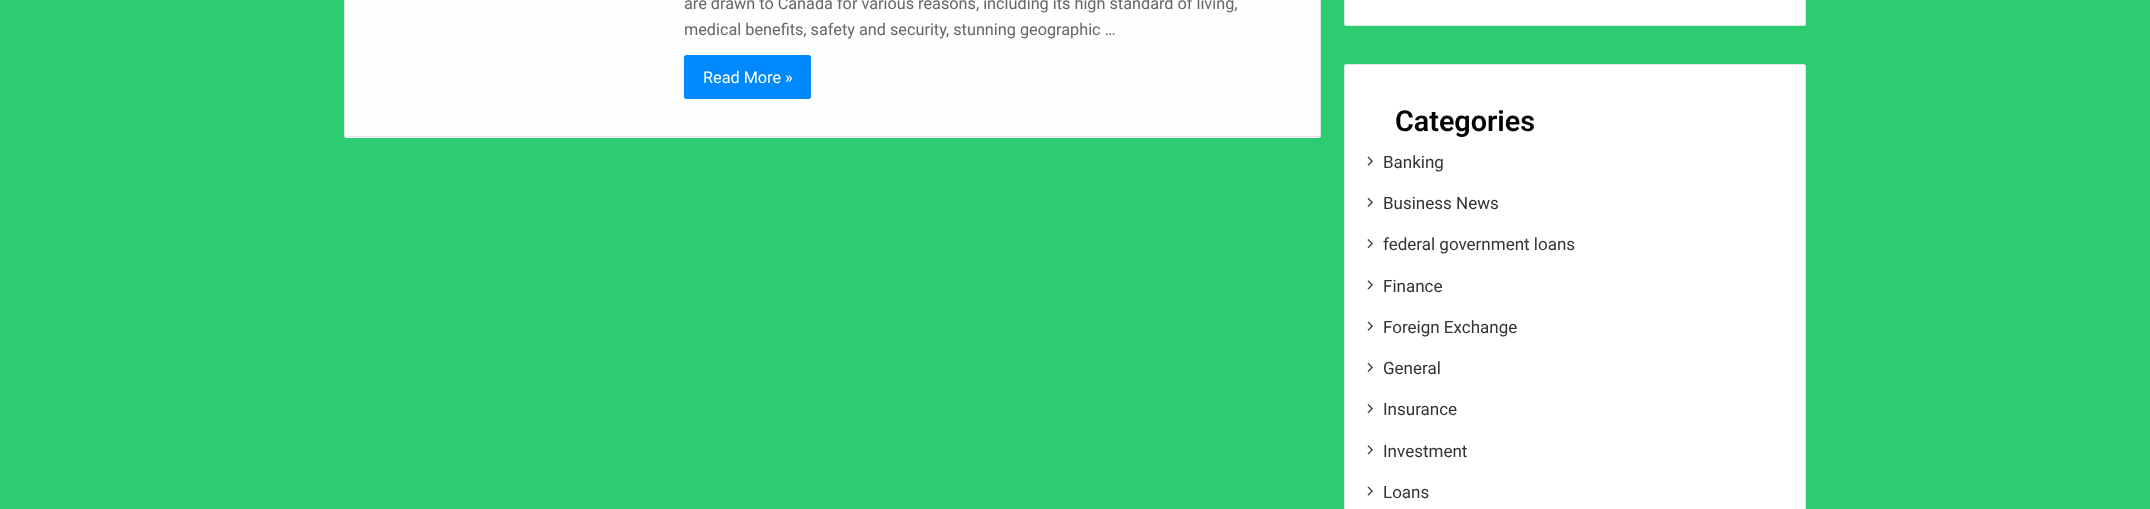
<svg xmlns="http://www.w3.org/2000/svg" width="2150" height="509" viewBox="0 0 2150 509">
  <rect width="100%" height="100%" fill="#2ecc71"/>
  <path d="M344-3H1321V135.5C1321 137 1320 138 1318.5 138H346.5C345 138 344 137 344 135.5Z" fill="#fdfefe"/>
  <path d="M1320 0h1v136H1320z" fill="#0002011a"/>
  <path d="M345 136h975v1H345z" fill="#e4e5e5"/>
  <path d="M344 0h1v136H344z" fill="#0002011a"/>
  <rect x="684" y="55" width="127" height="44" rx="2.5" fill="#0089fe"/>
  <rect x="1344" y="-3" width="462" height="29" rx="2.5" fill="#fff"/>
  <rect x="1344.5" y="-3.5" width="461" height="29" rx="2" fill="none" stroke="#0000001a"/>
  <rect x="1344" y="64" width="462" height="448" rx="2.5" fill="#fff"/>
  <rect x="1344.5" y="64.5" width="461" height="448" rx="2" fill="none" stroke="#0000001a"/>
  <image x="1367" y="156" width="6" height="10" href="img/1.png"/>
  <image x="1367" y="197" width="6" height="10" href="img/2.png"/>
  <image x="1367" y="239" width="6" height="10" href="img/3.png"/>
  <image x="1367" y="280" width="6" height="10" href="img/4.png"/>
  <image x="1367" y="321" width="6" height="10" href="img/1.png"/>
  <image x="1367" y="362" width="6" height="10" href="img/2.png"/>
  <image x="1367" y="404" width="6" height="10" href="img/3.png"/>
  <image x="1367" y="445" width="6" height="10" href="img/4.png"/>
  <image x="1367" y="486" width="6" height="10" href="img/1.png"/>
  <g font-family="Roboto" font-size="16.25" fill="#656766">
    <text x="684" y="9">are drawn to Canada for various reasons, including its high standard of living,</text>
    <text x="684" y="35">medical benefits, safety and security, stunning geographic …</text>
  </g>
  <text x="703" y="83" font-family="Roboto" font-size="16.25" fill="#fdfefe">Read More »</text>
  <text x="1395" y="131" font-family="Roboto" font-size="28.75" font-weight="600" fill="#030303">Categories</text>
  <g font-family="Roboto" font-size="17" fill="#333">
    <text x="1383" y="168">Banking</text>
    <text x="1383" y="209">Business News</text>
    <text x="1383" y="250">federal government loans</text>
    <text x="1383" y="292">Finance</text>
    <text x="1383" y="333">Foreign Exchange</text>
    <text x="1383" y="374">General</text>
    <text x="1383" y="415">Insurance</text>
    <text x="1383" y="457">Investment</text>
    <text x="1383" y="498">Loans</text>
  </g>
</svg>
